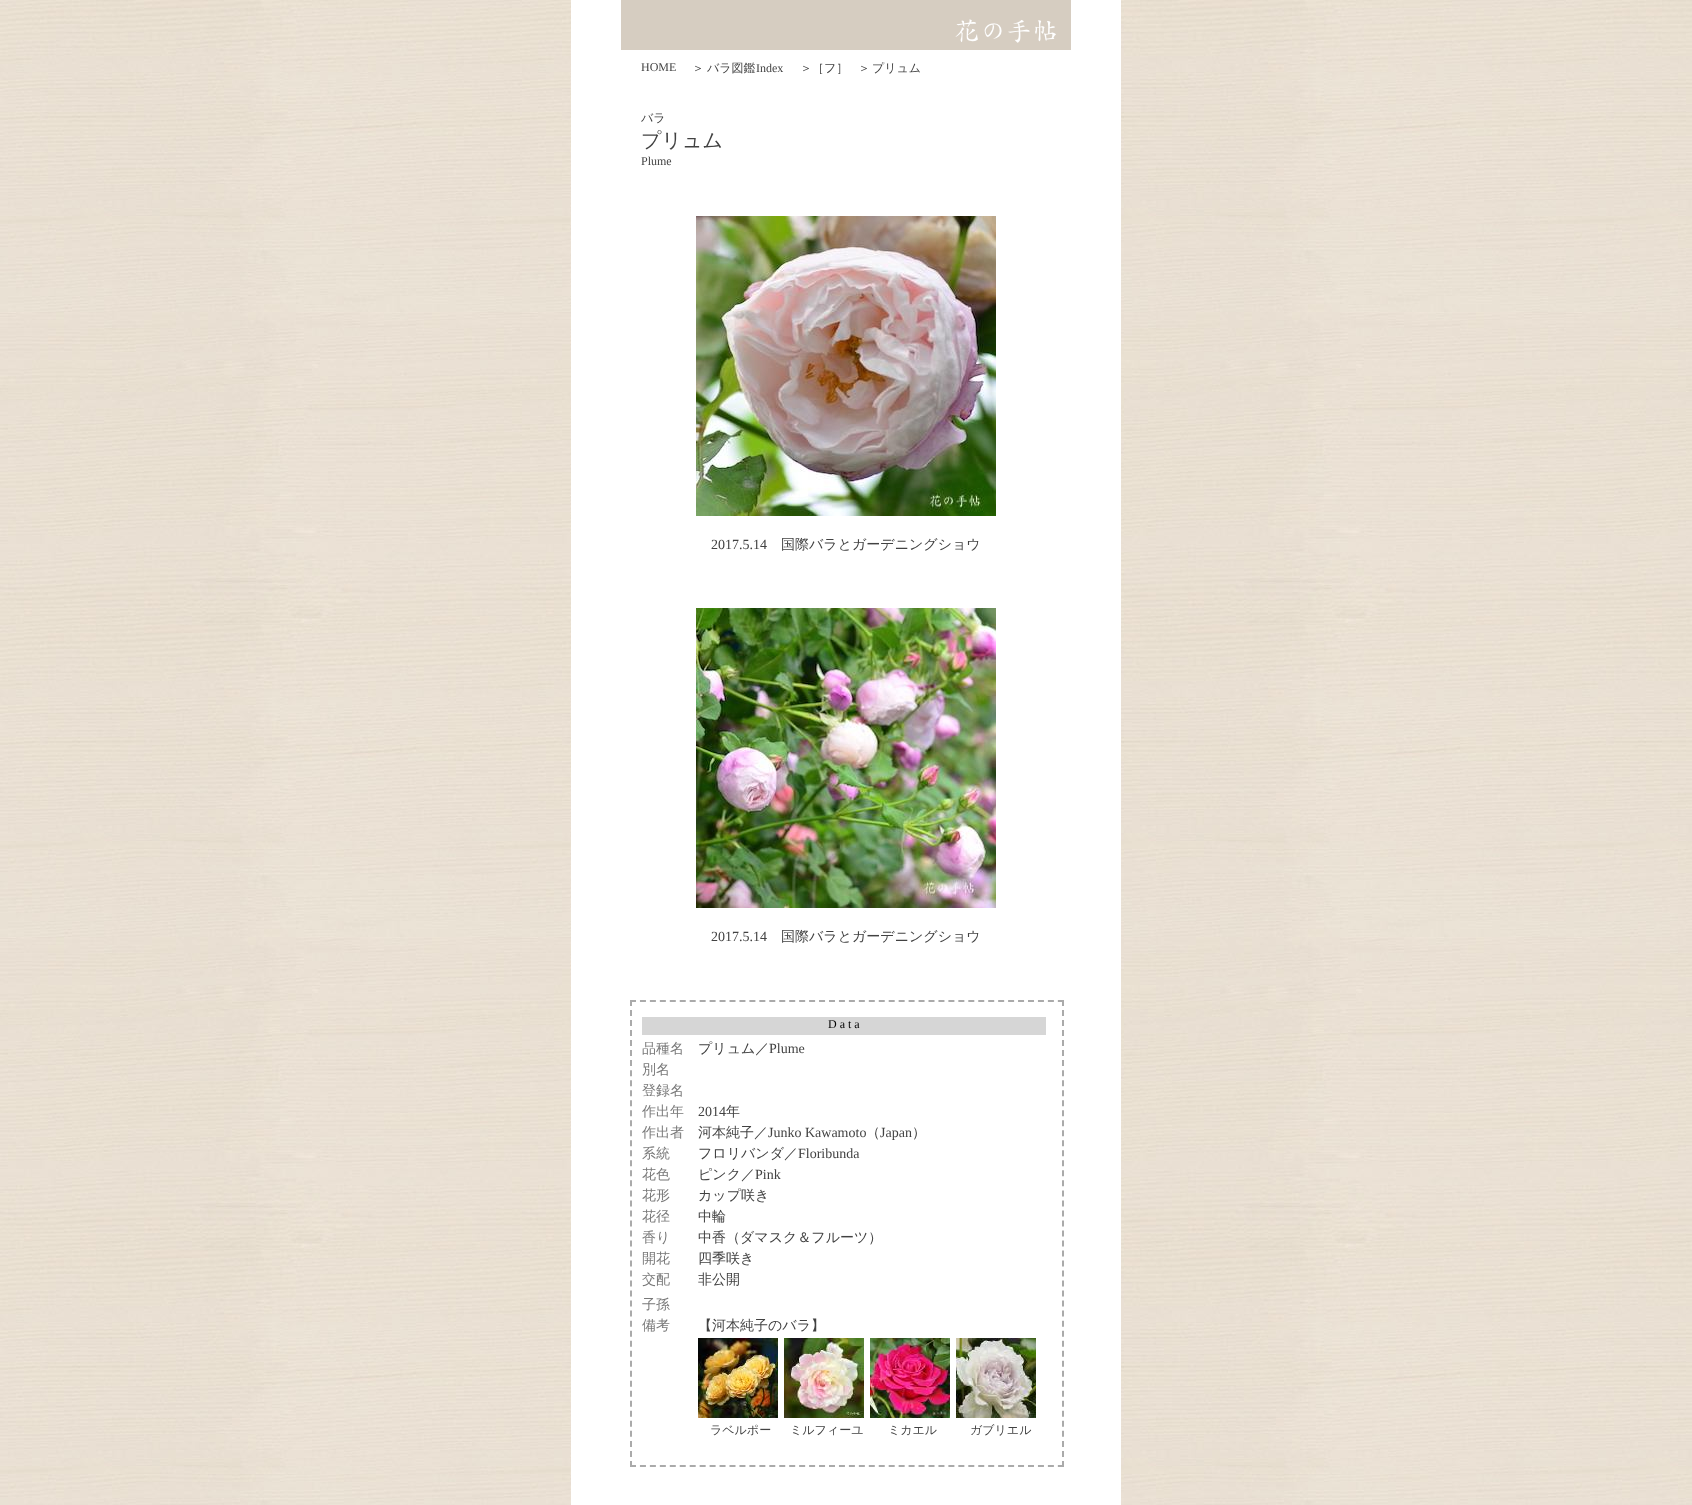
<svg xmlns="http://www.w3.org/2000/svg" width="1692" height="1505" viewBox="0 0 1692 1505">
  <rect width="100%" height="100%" fill="#fff"/>
  <image x="0" y="0" width="1692" height="1505" href="img/1.png"/>
  <path d="M571 0h550v1505H571z" fill="#fff"/>
  <path d="M621 0h450v50H621z" fill="#d6cdc1"/>
  <image x="955" y="19" width="101" height="24" href="img/2.png"/>
  <image x="696" y="216" width="300" height="300" href="img/3.png"/>
  <image x="696" y="608" width="300" height="300" href="img/4.png"/>
  <path d="M630 1001H1064" fill="none" stroke="#aaa" stroke-width="2" stroke-dasharray="6 3.95"/>
  <path d="M1063 1000V1467" fill="none" stroke="#aaa" stroke-width="2" stroke-dasharray="6 4.02"/>
  <path d="M630 1466H1064" fill="none" stroke="#aaa" stroke-width="2" stroke-dasharray="6 3.95"/>
  <path d="M631 1000V1467" fill="none" stroke="#aaa" stroke-width="2" stroke-dasharray="6 4.02"/>
  <path d="M642 1017h404v18H642z" fill="#d6d6d6"/>
  <image x="698" y="1338" width="80" height="80" href="img/5.png"/>
  <image x="784" y="1338" width="80" height="80" href="img/6.png"/>
  <image x="870" y="1338" width="80" height="80" href="img/7.png"/>
  <image x="956" y="1338" width="80" height="80" href="img/8.png"/>
  <text x="641" y="71" font-family="Liberation Serif" font-size="12" fill="#424242">HOME</text>
  <g font-family="WenQuanYi Zen Hei" font-size="12" font-weight="500" fill="#424242">
    <text x="692" y="72">＞</text>
    <text x="707" y="72">バラ図鑑</text>
  </g>
  <text x="756" y="72" font-family="Liberation Serif" font-size="12" fill="#424242">Index</text>
  <g font-family="WenQuanYi Zen Hei" font-size="12" font-weight="500" fill="#424242">
    <text x="800" y="72">＞［フ］</text>
    <text x="858" y="72">＞</text>
    <text x="872" y="72">プリュム</text>
    <text x="641" y="122">バラ</text>
  </g>
  <text x="641" y="147" font-family="WenQuanYi Zen Hei" font-size="20" font-weight="500" fill="#424242">プリュム</text>
  <text x="641" y="165" font-family="Liberation Serif" font-size="12" fill="#424242">Plume</text>
  <text x="711" y="549" font-family="Liberation Serif" font-size="14" fill="#424242">2017.5.14</text>
  <text x="781" y="549" font-family="WenQuanYi Zen Hei" font-size="14" font-weight="500" fill="#424242">国際バラとガーデニングショウ</text>
  <text x="711" y="941" font-family="Liberation Serif" font-size="14" fill="#424242">2017.5.14</text>
  <text x="781" y="941" font-family="WenQuanYi Zen Hei" font-size="14" font-weight="500" fill="#424242">国際バラとガーデニングショウ</text>
  <text x="828" y="1028" font-family="Liberation Serif" font-size="12" fill="#000">D a t a</text>
  <text x="642" y="1053" font-family="WenQuanYi Zen Hei" font-size="14" font-weight="500" fill="#797979">品種名</text>
  <text x="698" y="1053" font-family="WenQuanYi Zen Hei" font-size="14" font-weight="500" fill="#424242">プリュム／</text>
  <text x="769" y="1053" font-family="Liberation Serif" font-size="14" fill="#424242">Plume</text>
  <g font-family="WenQuanYi Zen Hei" font-size="14" font-weight="500" fill="#797979">
    <text x="642" y="1074">別名</text>
    <text x="642" y="1095">登録名</text>
    <text x="642" y="1116">作出年</text>
  </g>
  <text x="698" y="1116" font-family="Liberation Serif" font-size="14" fill="#424242">2014</text>
  <text x="726" y="1116" font-family="WenQuanYi Zen Hei" font-size="14" font-weight="500" fill="#424242">年</text>
  <text x="642" y="1137" font-family="WenQuanYi Zen Hei" font-size="14" font-weight="500" fill="#797979">作出者</text>
  <text x="698" y="1137" font-family="WenQuanYi Zen Hei" font-size="14" font-weight="500" fill="#424242">河本純子／</text>
  <text x="768" y="1137" font-family="Liberation Serif" font-size="14" fill="#424242">Junko Kawamoto</text>
  <text x="866" y="1137" font-family="WenQuanYi Zen Hei" font-size="14" font-weight="500" fill="#424242">（</text>
  <text x="880" y="1137" font-family="Liberation Serif" font-size="14" fill="#424242">Japan</text>
  <text x="912" y="1137" font-family="WenQuanYi Zen Hei" font-size="14" font-weight="500" fill="#424242">）</text>
  <text x="642" y="1158" font-family="WenQuanYi Zen Hei" font-size="14" font-weight="500" fill="#797979">系統</text>
  <text x="698" y="1158" font-family="WenQuanYi Zen Hei" font-size="14" font-weight="500" fill="#424242">フロリバンダ／</text>
  <text x="798" y="1158" font-family="Liberation Serif" font-size="14" fill="#424242">Floribunda</text>
  <text x="642" y="1179" font-family="WenQuanYi Zen Hei" font-size="14" font-weight="500" fill="#797979">花色</text>
  <text x="698" y="1179" font-family="WenQuanYi Zen Hei" font-size="14" font-weight="500" fill="#424242">ピンク／</text>
  <text x="755" y="1179" font-family="Liberation Serif" font-size="14" fill="#424242">Pink</text>
  <text x="642" y="1200" font-family="WenQuanYi Zen Hei" font-size="14" font-weight="500" fill="#797979">花形</text>
  <text x="698" y="1200" font-family="WenQuanYi Zen Hei" font-size="14" font-weight="500" fill="#424242">カップ咲き</text>
  <text x="642" y="1221" font-family="WenQuanYi Zen Hei" font-size="14" font-weight="500" fill="#797979">花径</text>
  <text x="698" y="1221" font-family="WenQuanYi Zen Hei" font-size="14" font-weight="500" fill="#424242">中輪</text>
  <text x="642" y="1242" font-family="WenQuanYi Zen Hei" font-size="14" font-weight="500" fill="#797979">香り</text>
  <text x="698" y="1242" font-family="WenQuanYi Zen Hei" font-size="14" font-weight="500" fill="#424242">中香（ダマスク＆フルーツ）</text>
  <text x="642" y="1263" font-family="WenQuanYi Zen Hei" font-size="14" font-weight="500" fill="#797979">開花</text>
  <text x="698" y="1263" font-family="WenQuanYi Zen Hei" font-size="14" font-weight="500" fill="#424242">四季咲き</text>
  <text x="642" y="1284" font-family="WenQuanYi Zen Hei" font-size="14" font-weight="500" fill="#797979">交配</text>
  <text x="698" y="1284" font-family="WenQuanYi Zen Hei" font-size="14" font-weight="500" fill="#424242">非公開</text>
  <g font-family="WenQuanYi Zen Hei" font-size="14" font-weight="500" fill="#797979">
    <text x="642" y="1309">子孫</text>
    <text x="642" y="1330">備考</text>
  </g>
  <text x="698" y="1330" font-family="WenQuanYi Zen Hei" font-size="14" font-weight="500" fill="#424242">【河本純子のバラ】</text>
  <g font-family="WenQuanYi Zen Hei" font-size="12" font-weight="500" fill="#424242">
    <text x="710" y="1434">ラベルポー</text>
    <text x="790" y="1434">ミルフィーユ</text>
    <text x="888" y="1434">ミカエル</text>
    <text x="970" y="1434">ガブリエル</text>
  </g>
</svg>
